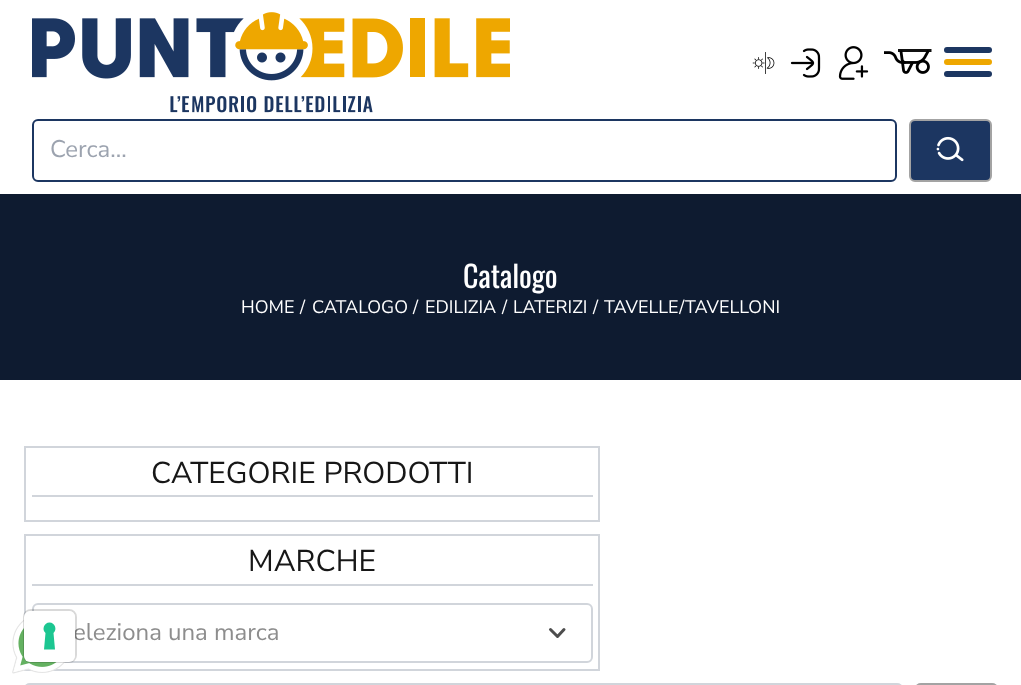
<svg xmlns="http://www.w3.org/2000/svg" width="1021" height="685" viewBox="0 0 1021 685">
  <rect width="100%" height="100%" fill="#fff"/>
  <image x="32" y="12" width="478" height="101" href="img/1.png"/>
  <image x="752" y="52" width="23" height="22" href="img/2.png"/>
  <image x="790" y="48" width="31" height="30" href="img/3.png"/>
  <image x="838" y="46" width="31" height="34" href="img/4.png"/>
  <image x="884" y="49" width="48" height="25" href="img/5.png"/>
  <rect x="944" y="47" width="48" height="6" rx="3" fill="#1c3661"/>
  <rect x="944" y="59" width="48" height="6" rx="3" fill="#eea700"/>
  <rect x="944" y="71" width="48" height="6" rx="3" fill="#1c3661"/>
  <rect x="33" y="120" width="863" height="61" rx="5" fill="none" stroke="#1c3661" stroke-width="2"/>
  <rect x="910" y="120" width="81" height="61" rx="5" fill="#1c3661" stroke="#a3a3a3" stroke-width="2"/>
  <image x="936" y="136" width="28" height="26" href="img/6.png"/>
  <path d="M0 194h1021v186H0z" fill="#0e1b30"/>
  <path d="M25 447h574v74H25z" fill="none" stroke="#d1d5db" stroke-width="2"/>
  <path d="M32 495h561v2H32z" fill="#d1d5db"/>
  <path d="M25 535h574v135H25z" fill="none" stroke="#d1d5db" stroke-width="2"/>
  <path d="M32 584h561v2H32z" fill="#d1d5db"/>
  <rect x="33" y="604" width="559" height="58" rx="5" fill="none" stroke="#d1d5db" stroke-width="2"/>
  <path d="M550.5 629.5L557.5 636.5L564 629.5" fill="none" stroke="#4d4d4d" stroke-width="3" stroke-linecap="round" stroke-linejoin="round"/>
  <rect x="25" y="684" width="877" height="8" rx="5" fill="none" stroke="#d1d5db" stroke-width="2"/>
  <rect x="916" y="684" width="81" height="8" rx="5" fill="none" stroke="#a3a3a3" stroke-width="2"/>
  <image x="12" y="619" width="53" height="55" href="img/7.png"/>
  <text x="50" y="157" font-family="Nunito Sans" font-size="24" fill="#9ca3af">Cerca...</text>
  <text x="463" y="288" font-family="Oswald" font-size="30" fill="#fff">Catalogo</text>
  <g font-family="Nunito Sans" font-size="18" fill="#fff">
    <text x="241" y="313">HOME</text>
    <text x="300" y="313">/</text>
    <text x="312" y="313">CATALOGO</text>
    <text x="413" y="313">/</text>
    <text x="425" y="313">EDILIZIA</text>
    <text x="502" y="313">/</text>
    <text x="513" y="313">LATERIZI</text>
    <text x="593" y="313">/</text>
    <text x="604" y="313">TAVELLE/TAVELLONI</text>
  </g>
  <g font-family="Nunito Sans" font-size="30" fill="#171717">
    <text x="151" y="483">CATEGORIE PRODOTTI</text>
    <text x="248" y="571">MARCHE</text>
  </g>
  <text x="73" y="640" font-family="Nunito Sans" font-size="24" fill="#8d8d8d">eleziona una marca</text>
  <rect x="24" y="610" width="52" height="52" rx="7" fill="none" stroke="#00000026" stroke-width="2"/>
  <rect x="24" y="611" width="51" height="51" rx="6" fill="#fff"/>
  <path d="M49.5 622.5C55 622.5 57.5 629.5 53.5 633L55 649.5H44L45.5 633C41.5 629.5 44 622.5 49.5 622.5Z" fill="#1cc691" fill-rule="evenodd"/>
</svg>
